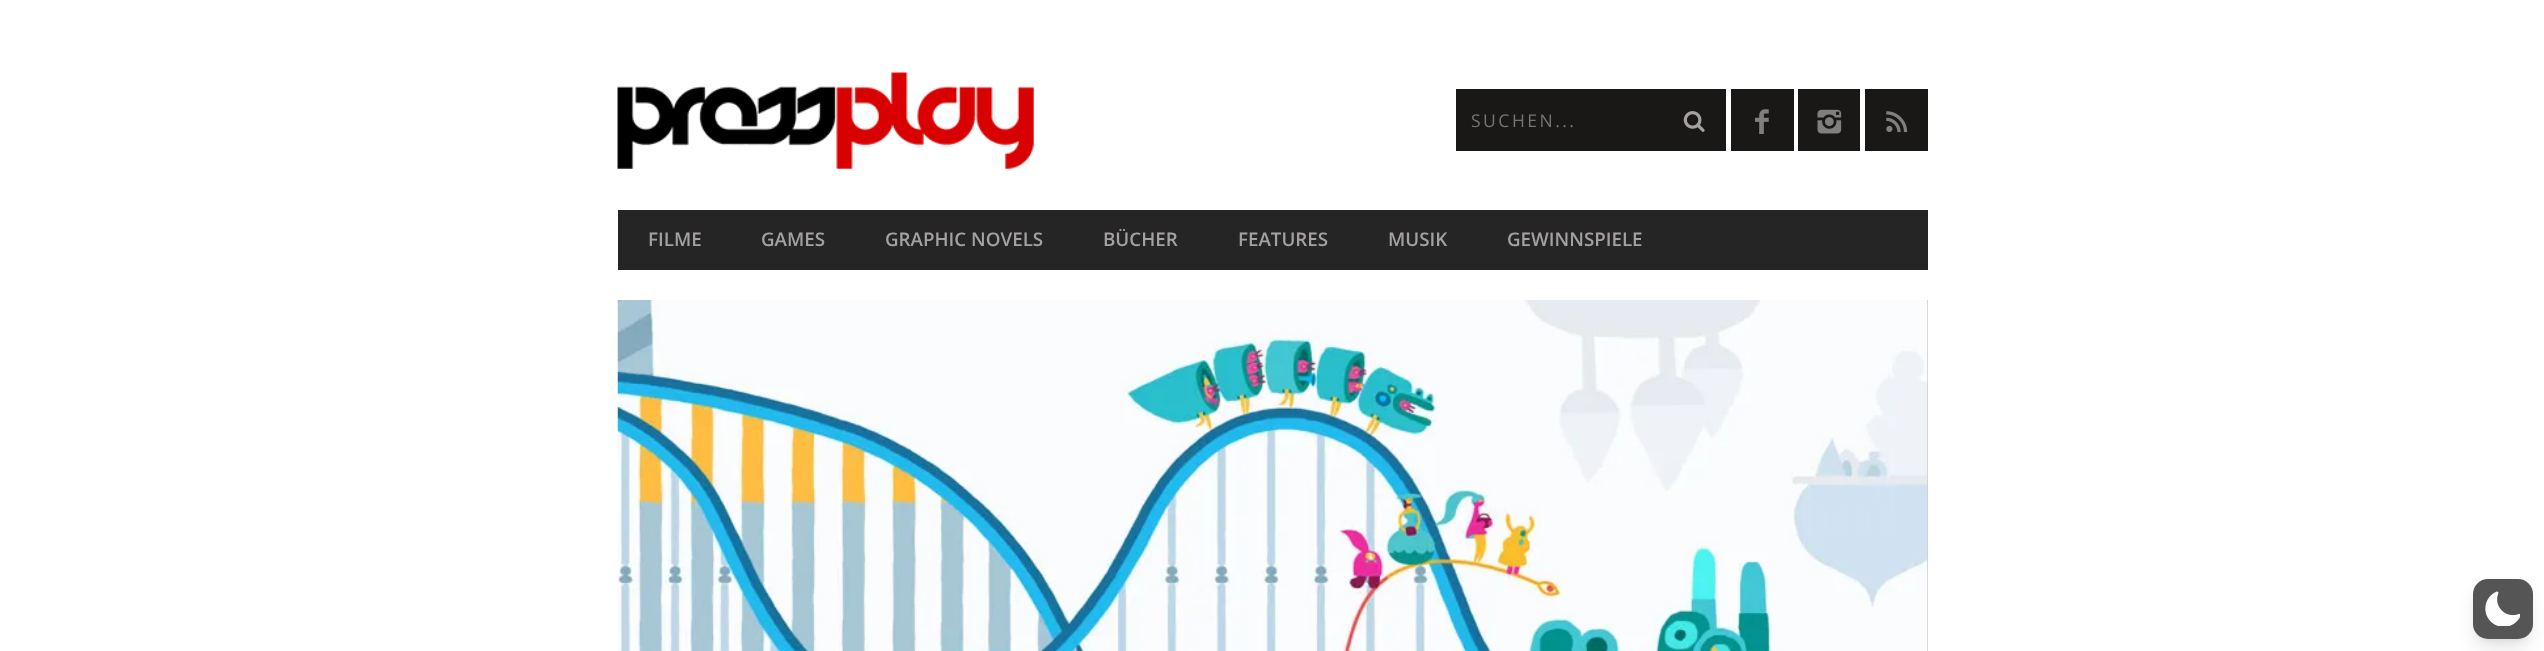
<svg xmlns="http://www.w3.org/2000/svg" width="2544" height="651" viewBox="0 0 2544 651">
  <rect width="100%" height="100%" fill="#fff"/>
  <image x="617" y="72" width="417" height="97" href="img/1.png"/>
  <path d="M1456 89h270v62H1456z" fill="#1a1717"/>
  <image x="1683" y="111" width="22" height="21" href="img/2.png"/>
  <path d="M1731 89h63v62H1731z" fill="#1a1717"/>
  <image x="1755" y="109" width="14" height="25" href="img/3.png"/>
  <path d="M1798 89h62v62H1798z" fill="#1a1717"/>
  <image x="1817" y="109" width="25" height="25" href="img/4.png"/>
  <path d="M1865 89h63v62H1865z" fill="#1a1717"/>
  <image x="1886" y="111" width="22" height="22" href="img/5.png"/>
  <path d="M618 210h1310v60H618z" fill="#262525"/>
  <path d="M1927 300h1v351H1927z" fill="#ccc"/>
  <image x="617" y="300" width="1311" height="351" href="img/6.png"/>
  <rect x="2478" y="589" width="50" height="50" rx="10" fill="#0000001a" filter="blur(4px)"/>
  <rect x="2476" y="595" width="53" height="53" rx="11" fill="#0000001a" filter="blur(9.5px)"/>
  <rect x="2473" y="579" width="60" height="60" rx="15" fill="#555"/>
  <image x="2485" y="591" width="35" height="35" href="img/7.png"/>
  <text x="1471" y="127" font-family="Open Sans" font-size="17.5" letter-spacing="2.5" fill="#757575">SUCHEN...</text>
  <g font-family="Open Sans" font-size="18.75" font-weight="600" fill="#a6a1a1">
    <text x="648" y="246">FILME</text>
    <text x="761" y="246">GAMES</text>
    <text x="885" y="246">GRAPHIC NOVELS</text>
    <text x="1103" y="246">BÜCHER</text>
    <text x="1238" y="246">FEATURES</text>
    <text x="1388" y="246">MUSIK</text>
    <text x="1507" y="246">GEWINNSPIELE</text>
  </g>
</svg>
